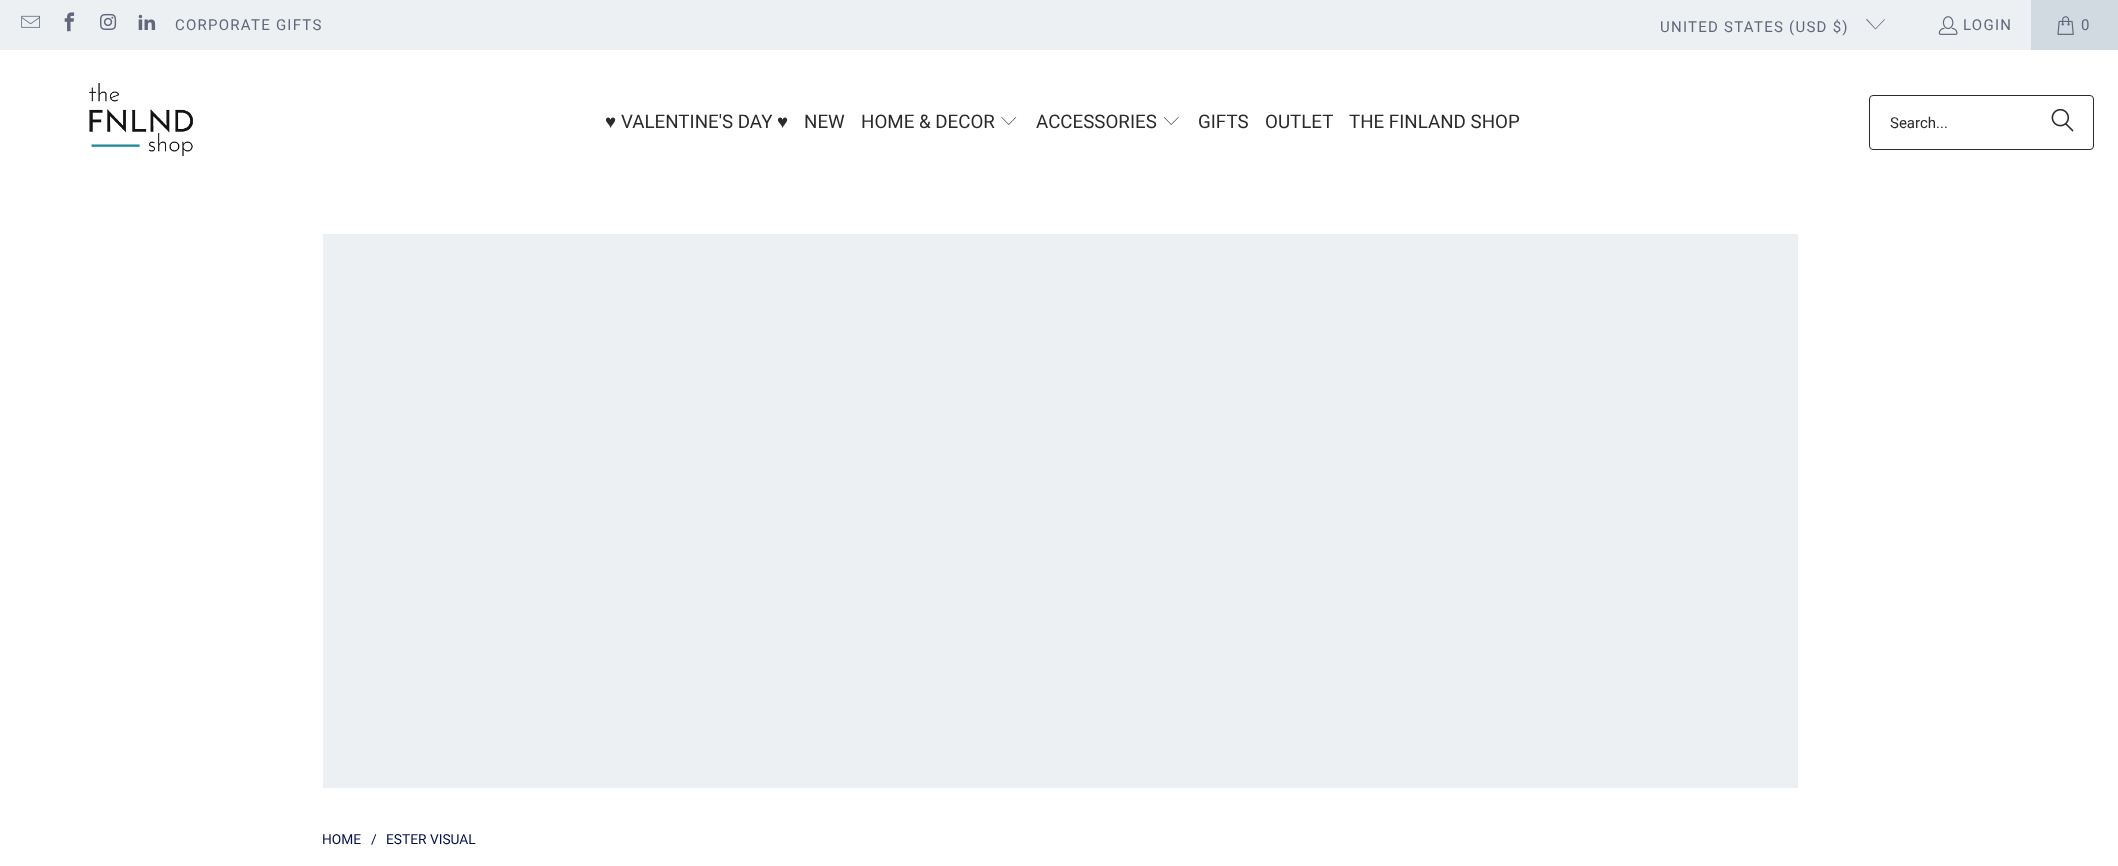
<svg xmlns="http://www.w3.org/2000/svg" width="2118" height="866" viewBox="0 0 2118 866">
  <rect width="100%" height="100%" fill="#fff"/>
  <path d="M0 0h2031v50H0z" fill="#ecf0f3"/>
  <image x="21" y="15" width="19" height="13" href="img/1.png"/>
  <image x="64" y="12" width="11" height="20" href="img/2.png"/>
  <image x="100" y="13" width="17" height="17" href="img/3.png"/>
  <image x="138" y="14" width="18" height="16" href="img/4.png"/>
  <path d="M1875.5 29.5L1866 19.5L1867 19L1875.5 28.5L1884.5 19L1885 19.5Z" fill="#62677b"/>
  <image x="1938" y="16" width="20" height="19" href="img/5.png"/>
  <path d="M2031 0h87v50H2031z" fill="#d1d9e1"/>
  <image x="2057" y="16" width="17" height="19" href="img/6.png"/>
  <image x="89" y="83" width="105" height="73" href="img/7.png"/>
  <image x="1001" y="117" width="16" height="8" href="img/8.png"/>
  <image x="1163" y="117" width="16" height="8" href="img/9.png"/>
  <rect x="1869.5" y="95.5" width="224" height="54" rx="3.5" fill="none" stroke="#2b2a2a"/>
  <image x="2051" y="108" width="23" height="24" href="img/10.png"/>
  <path d="M323 234h1475v554H323z" fill="#ecf0f3"/>
  <g font-family="Roboto" font-size="15" letter-spacing="1.25" fill="#62677b">
    <text x="175" y="30">CORPORATE GIFTS</text>
    <text x="1660" y="32">UNITED STATES (USD $)</text>
    <text x="1963" y="30">LOGIN</text>
    <text x="2081" y="30">0</text>
  </g>
  <text x="605" y="128" font-family="Liberation Sans" font-size="18.75" fill="#2b2a2a">♥</text>
  <text x="621" y="128" font-family="Roboto" font-size="18.75" fill="#2b2a2a">VALENTINE'S DAY</text>
  <text x="777" y="128" font-family="Liberation Sans" font-size="18.75" fill="#2b2a2a">♥</text>
  <g font-family="Roboto" font-size="18.75" fill="#2b2a2a">
    <text x="804" y="128">NEW</text>
    <text x="861" y="128">HOME &amp; DECOR</text>
    <text x="1036" y="128">ACCESSORIES</text>
    <text x="1198" y="128">GIFTS</text>
    <text x="1265" y="128">OUTLET</text>
    <text x="1349" y="128">THE FINLAND SHOP</text>
  </g>
  <text x="1890" y="128" font-family="Roboto" font-size="15" fill="#2b2a2a">Search...</text>
  <g font-family="Roboto" font-size="13.75" fill="#020f4c">
    <text x="322" y="844">HOME</text>
    <text x="371" y="844">/</text>
    <text x="386" y="844">ESTER VISUAL</text>
  </g>
</svg>
